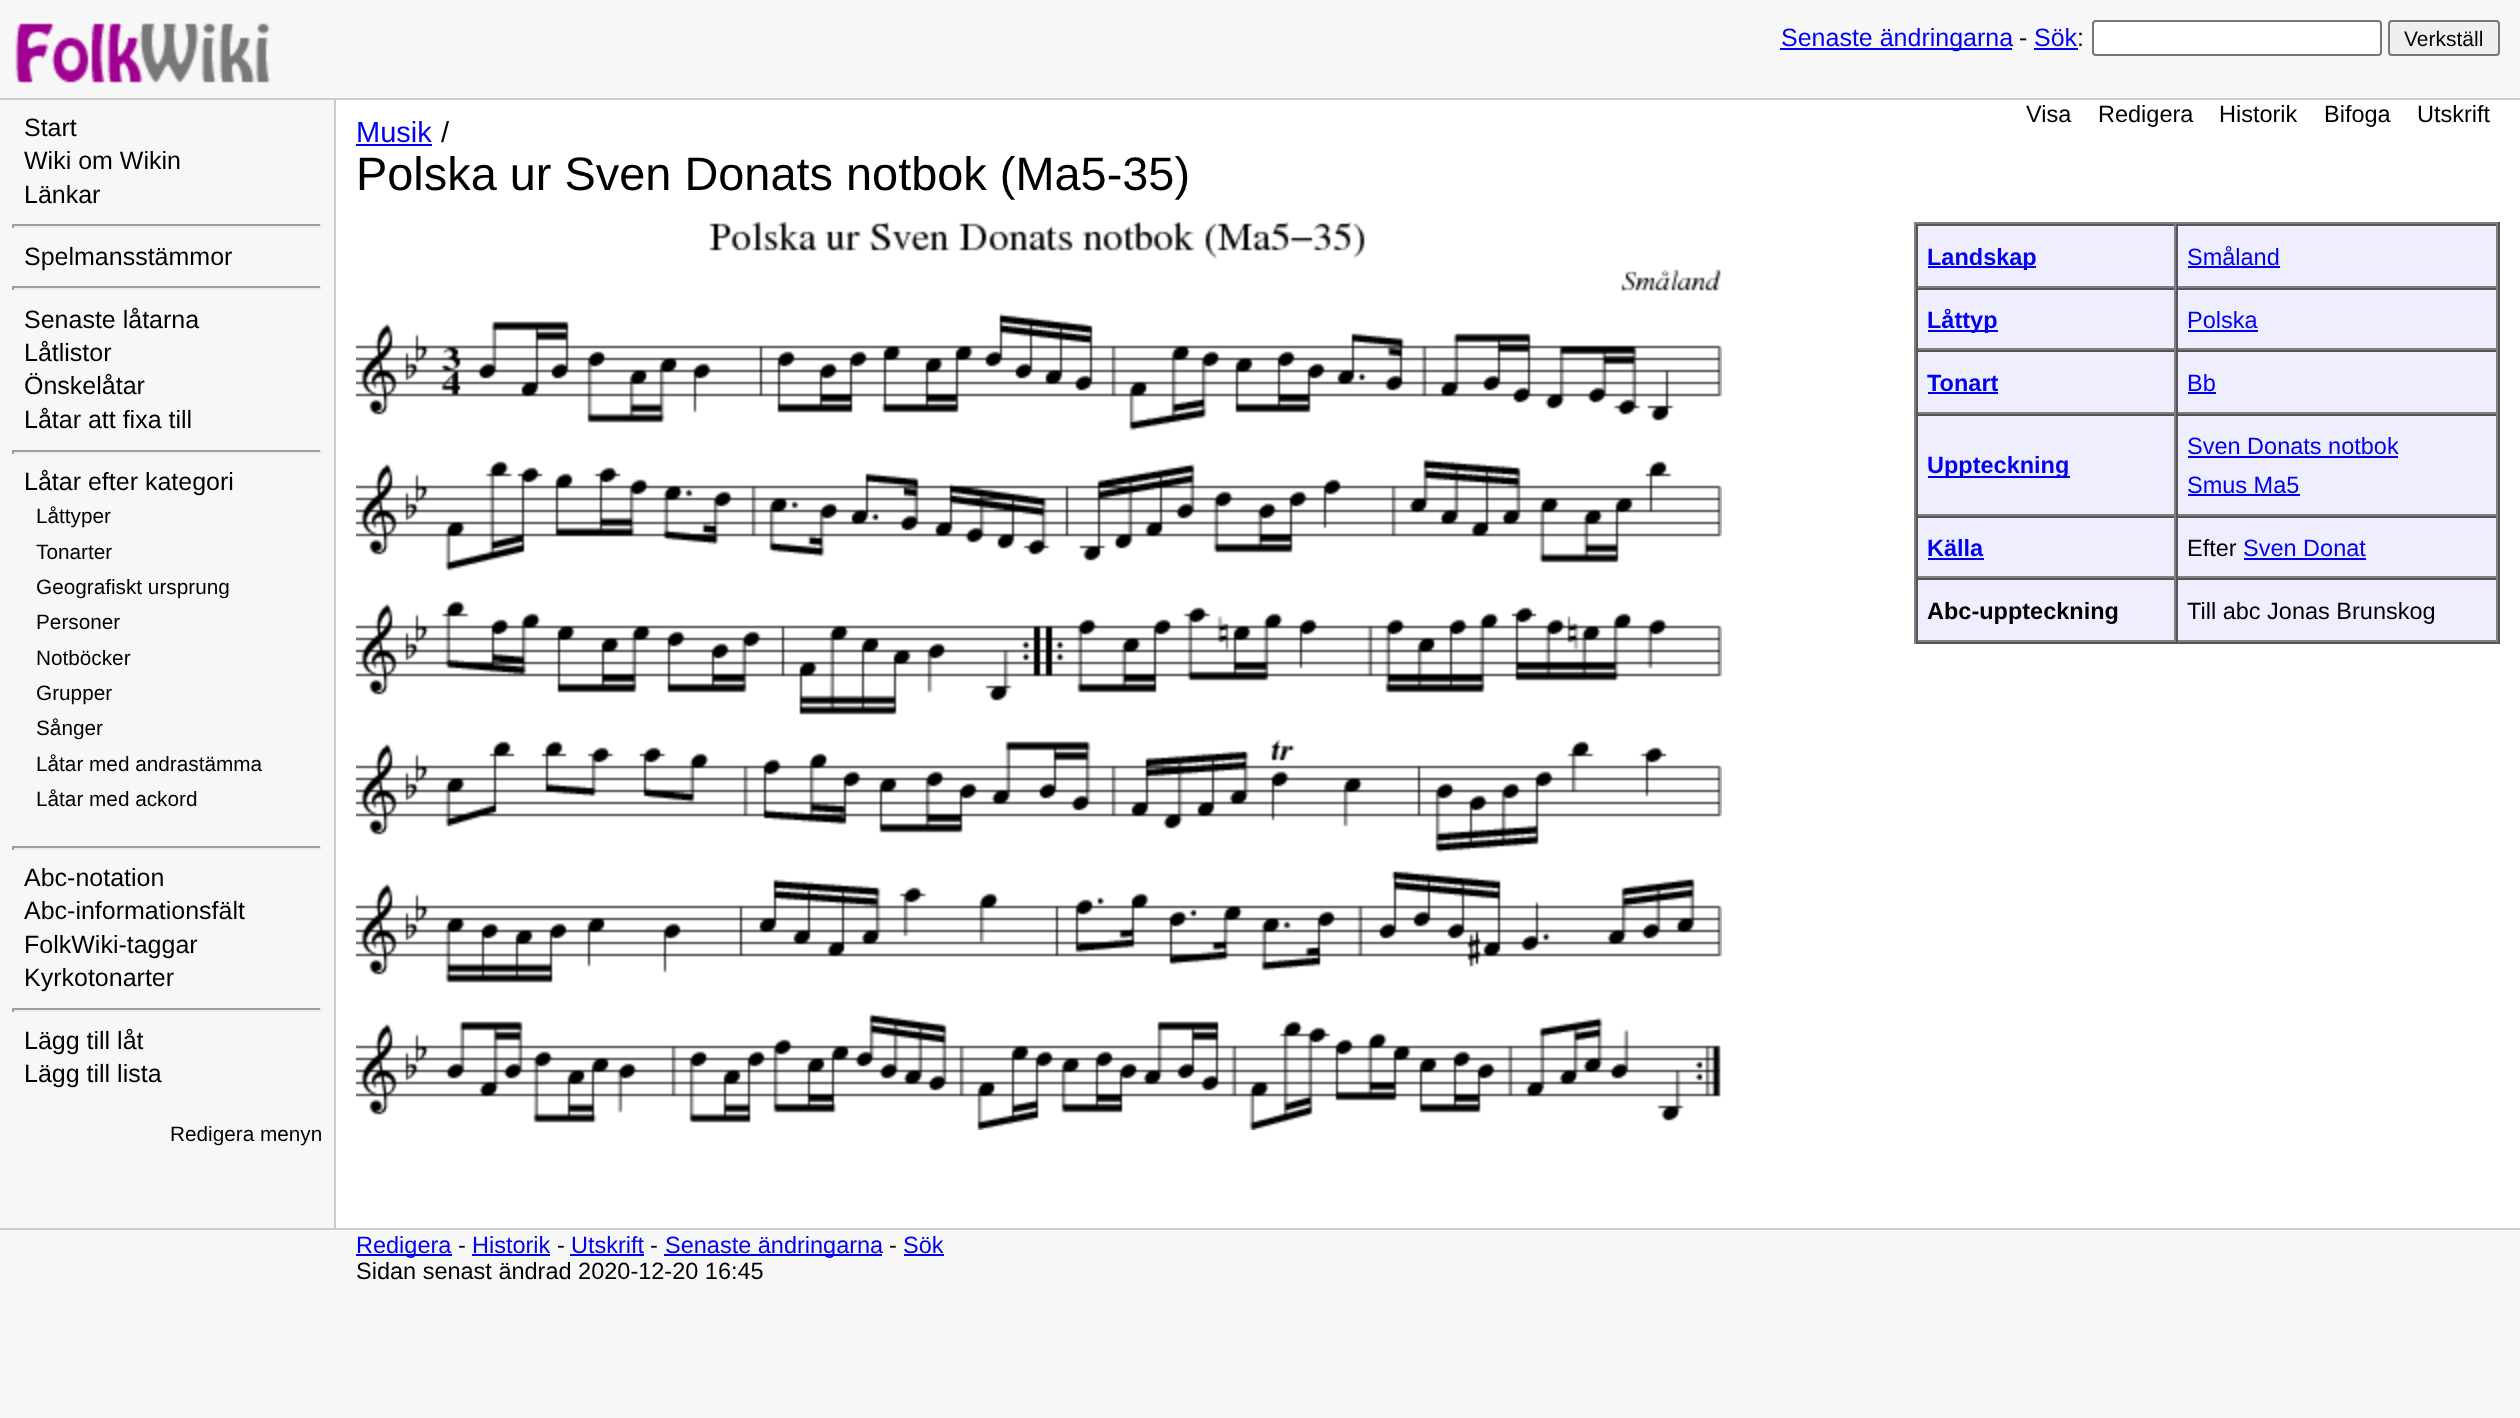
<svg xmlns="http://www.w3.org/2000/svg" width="2520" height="1418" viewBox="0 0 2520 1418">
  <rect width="100%" height="100%" fill="#f7f7f7"/>
  <path d="M0 98h2520v2H0z" fill="#ccc"/>
  <image x="15" y="23" width="256" height="60" href="img/1.png"/>
  <path d="M1780 48h232v2H1780z" fill="#00e"/>
  <path d="M2034 48h44v2H2034z" fill="#00e"/>
  <rect x="2093" y="21" width="288" height="34" rx="3" fill="#fff" stroke="#767676" stroke-width="2"/>
  <rect x="2389" y="21" width="110" height="34" rx="3" fill="#efefef" stroke="#767676" stroke-width="2"/>
  <path d="M334 100h2v1128H334z" fill="#ccc"/>
  <path d="M12 224h310v2H12z" fill="#9f9f9f"/>
  <path d="M320 224h2v4H320z" fill="#eee"/>
  <path d="M12 226h310v2H12z" fill="#eee"/>
  <path d="M12 224h2v4H12z" fill="#9f9f9f"/>
  <path d="M12 286h310v2H12z" fill="#9f9f9f"/>
  <path d="M320 286h2v4H320z" fill="#eee"/>
  <path d="M12 288h310v2H12z" fill="#eee"/>
  <path d="M12 286h2v4H12z" fill="#9f9f9f"/>
  <path d="M12 450h310v2H12z" fill="#9f9f9f"/>
  <path d="M320 450h2v4H320z" fill="#eee"/>
  <path d="M12 452h310v2H12z" fill="#eee"/>
  <path d="M12 450h2v4H12z" fill="#9f9f9f"/>
  <path d="M12 846h310v2H12z" fill="#9f9f9f"/>
  <path d="M320 846h2v4H320z" fill="#eee"/>
  <path d="M12 848h310v2H12z" fill="#eee"/>
  <path d="M12 846h2v4H12z" fill="#9f9f9f"/>
  <path d="M12 1008h310v2H12z" fill="#9f9f9f"/>
  <path d="M320 1008h2v4H320z" fill="#eee"/>
  <path d="M12 1010h310v2H12z" fill="#eee"/>
  <path d="M12 1008h2v4H12z" fill="#9f9f9f"/>
  <path d="M336 100h2184v1128H336z" fill="#fff"/>
  <path d="M356 144h76v2H356z" fill="#00e"/>
  <image x="356" y="222" width="1366" height="908" href="img/2.png"/>
  <path d="M1918 226h578v414H1918z" fill="#eef"/>
  <path d="M1914 222h586v2H1914z" fill="#808080"/>
  <path d="M2498 222h2v422H2498z" fill="#555"/>
  <path d="M1914 642h586v2H1914z" fill="#555"/>
  <path d="M1914 222h2v422H1914z" fill="#808080"/>
  <path d="M1916 224h582v2H1916z" fill="#555"/>
  <path d="M2174 224h2v64H2174z" fill="#808080"/>
  <path d="M1916 286h260v2H1916z" fill="#808080"/>
  <path d="M1916 224h2v64H1916z" fill="#555"/>
  <path d="M1928 266h108v2H1928z" fill="#00e"/>
  <path d="M2496 224h2v64H2496z" fill="#808080"/>
  <path d="M2176 286h322v2H2176z" fill="#808080"/>
  <path d="M2176 224h2v64H2176z" fill="#555"/>
  <path d="M2188 266h92v2H2188z" fill="#00e"/>
  <path d="M1916 288h582v2H1916z" fill="#555"/>
  <path d="M2174 288h2v62H2174z" fill="#808080"/>
  <path d="M1916 348h260v2H1916z" fill="#808080"/>
  <path d="M1916 288h2v62H1916z" fill="#555"/>
  <path d="M1928 330h70v2H1928z" fill="#00e"/>
  <path d="M2496 288h2v62H2496z" fill="#808080"/>
  <path d="M2176 348h322v2H2176z" fill="#808080"/>
  <path d="M2176 288h2v62H2176z" fill="#555"/>
  <path d="M2188 330h70v2H2188z" fill="#00e"/>
  <path d="M1916 350h582v2H1916z" fill="#555"/>
  <path d="M2174 350h2v64H2174z" fill="#808080"/>
  <path d="M1916 412h260v2H1916z" fill="#808080"/>
  <path d="M1916 350h2v64H1916z" fill="#555"/>
  <path d="M1928 392h70v2H1928z" fill="#00e"/>
  <path d="M2496 350h2v64H2496z" fill="#808080"/>
  <path d="M2176 412h322v2H2176z" fill="#808080"/>
  <path d="M2176 350h2v64H2176z" fill="#555"/>
  <path d="M2188 392h28v2H2188z" fill="#00e"/>
  <path d="M1916 414h582v2H1916z" fill="#555"/>
  <path d="M2174 414h2v102H2174z" fill="#808080"/>
  <path d="M1916 514h260v2H1916z" fill="#808080"/>
  <path d="M1916 414h2v102H1916z" fill="#555"/>
  <path d="M1928 476h142v2H1928z" fill="#00e"/>
  <path d="M2496 414h2v102H2496z" fill="#808080"/>
  <path d="M2176 514h322v2H2176z" fill="#808080"/>
  <path d="M2176 414h2v102H2176z" fill="#555"/>
  <path d="M2188 456h210v2H2188z" fill="#00e"/>
  <path d="M2188 494h112v2H2188z" fill="#00e"/>
  <path d="M1916 516h582v2H1916z" fill="#555"/>
  <path d="M2174 516h2v62H2174z" fill="#808080"/>
  <path d="M1916 576h260v2H1916z" fill="#808080"/>
  <path d="M1916 516h2v62H1916z" fill="#555"/>
  <path d="M1928 558h56v2H1928z" fill="#00e"/>
  <path d="M2496 516h2v62H2496z" fill="#808080"/>
  <path d="M2176 576h322v2H2176z" fill="#808080"/>
  <path d="M2176 516h2v62H2176z" fill="#555"/>
  <path d="M2244 558h122v2H2244z" fill="#00e"/>
  <path d="M1916 578h582v2H1916z" fill="#555"/>
  <path d="M2174 578h2v64H2174z" fill="#808080"/>
  <path d="M1916 640h260v2H1916z" fill="#808080"/>
  <path d="M1916 578h2v64H1916z" fill="#555"/>
  <path d="M2496 578h2v64H2496z" fill="#808080"/>
  <path d="M2176 640h322v2H2176z" fill="#808080"/>
  <path d="M2176 578h2v64H2176z" fill="#555"/>
  <path d="M0 1228h2520v2H0z" fill="#ccc"/>
  <path d="M356 1254h96v2H356z" fill="#00e"/>
  <path d="M472 1254h78v2H472z" fill="#00e"/>
  <path d="M570 1254h74v2H570z" fill="#00e"/>
  <path d="M664 1254h218v2H664z" fill="#00e"/>
  <path d="M904 1254h40v2H904z" fill="#00e"/>
  <text x="1781" y="46" font-family="Liberation Sans" font-size="25" fill="#00e">Senaste ändringarna</text>
  <text x="2019" y="46" font-family="Liberation Sans" font-size="25" fill="#000">-</text>
  <text x="2034" y="46" font-family="Liberation Sans" font-size="25" fill="#00e">Sök</text>
  <text x="2077" y="46" font-family="Liberation Sans" font-size="25" fill="#000">:</text>
  <text x="2404" y="46" font-family="Liberation Sans" font-size="21" fill="#000">Verkställ</text>
  <g font-family="Liberation Sans" font-size="25" fill="#000">
    <text x="24" y="136">Start</text>
    <text x="24" y="169">Wiki om Wikin</text>
    <text x="24" y="203">Länkar</text>
    <text x="24" y="265">Spelmansstämmor</text>
    <text x="24" y="328">Senaste låtarna</text>
    <text x="24" y="361">Låtlistor</text>
    <text x="24" y="394">Önskelåtar</text>
    <text x="24" y="428">Låtar att fixa till</text>
    <text x="24" y="490">Låtar efter kategori</text>
  </g>
  <g font-family="Liberation Sans" font-size="20.75" fill="#000">
    <text x="36" y="523">Låttyper</text>
    <text x="36" y="559">Tonarter</text>
    <text x="36" y="594">Geografiskt ursprung</text>
    <text x="36" y="629">Personer</text>
    <text x="36" y="665">Notböcker</text>
    <text x="36" y="700">Grupper</text>
    <text x="36" y="735">Sånger</text>
    <text x="36" y="771">Låtar med andrastämma</text>
    <text x="36" y="806">Låtar med ackord</text>
  </g>
  <g font-family="Liberation Sans" font-size="25" fill="#000">
    <text x="24" y="886">Abc-notation</text>
    <text x="24" y="919">Abc-informationsfält</text>
    <text x="24" y="953">FolkWiki-taggar</text>
    <text x="24" y="986">Kyrkotonarter</text>
    <text x="24" y="1049">Lägg till låt</text>
    <text x="24" y="1082">Lägg till lista</text>
  </g>
  <text x="170" y="1141" font-family="Liberation Sans" font-size="20.75" fill="#000">Redigera menyn</text>
  <g font-family="Liberation Sans" font-size="23.5" fill="#000">
    <text x="2026" y="122">Visa</text>
    <text x="2098" y="122">Redigera</text>
    <text x="2219" y="122">Historik</text>
    <text x="2324" y="122">Bifoga</text>
    <text x="2417" y="122">Utskrift</text>
  </g>
  <text x="356" y="142" font-family="Liberation Sans" font-size="29" fill="#00e">Musik</text>
  <text x="441" y="142" font-family="Liberation Sans" font-size="29" fill="#000">/</text>
  <text x="356" y="190" font-family="Liberation Sans" font-size="46.9" fill="#000">Polska ur Sven Donats notbok (Ma5-35)</text>
  <text x="1927" y="265" font-family="Liberation Sans" font-size="23.5" font-weight="bold" fill="#00e">Landskap</text>
  <text x="2187" y="265" font-family="Liberation Sans" font-size="23.5" fill="#00e">Småland</text>
  <text x="1927" y="328" font-family="Liberation Sans" font-size="23.5" font-weight="bold" fill="#00e">Låttyp</text>
  <text x="2187" y="328" font-family="Liberation Sans" font-size="23.5" fill="#00e">Polska</text>
  <text x="1927" y="391" font-family="Liberation Sans" font-size="23.5" font-weight="bold" fill="#00e">Tonart</text>
  <text x="2187" y="391" font-family="Liberation Sans" font-size="23.5" fill="#00e">Bb</text>
  <text x="1927" y="473" font-family="Liberation Sans" font-size="23.5" font-weight="bold" fill="#00e">Uppteckning</text>
  <g font-family="Liberation Sans" font-size="23.5" fill="#00e">
    <text x="2187" y="454">Sven Donats notbok</text>
    <text x="2187" y="493">Smus Ma5</text>
  </g>
  <text x="1927" y="556" font-family="Liberation Sans" font-size="23.5" font-weight="bold" fill="#00e">Källa</text>
  <text x="2187" y="556" font-family="Liberation Sans" font-size="23.5" fill="#000">Efter</text>
  <text x="2243" y="556" font-family="Liberation Sans" font-size="23.5" fill="#00e">Sven Donat</text>
  <text x="1927" y="619" font-family="Liberation Sans" font-size="23.5" font-weight="bold" fill="#000">Abc-uppteckning</text>
  <text x="2187" y="619" font-family="Liberation Sans" font-size="23.5" fill="#000">Till abc Jonas Brunskog</text>
  <text x="356" y="1253" font-family="Liberation Sans" font-size="23.5" fill="#00e">Redigera</text>
  <text x="458" y="1253" font-family="Liberation Sans" font-size="23.5" fill="#000">-</text>
  <text x="472" y="1253" font-family="Liberation Sans" font-size="23.5" fill="#00e">Historik</text>
  <text x="557" y="1253" font-family="Liberation Sans" font-size="23.5" fill="#000">-</text>
  <text x="571" y="1253" font-family="Liberation Sans" font-size="23.5" fill="#00e">Utskrift</text>
  <text x="650" y="1253" font-family="Liberation Sans" font-size="23.5" fill="#000">-</text>
  <text x="665" y="1253" font-family="Liberation Sans" font-size="23.5" fill="#00e">Senaste ändringarna</text>
  <text x="889" y="1253" font-family="Liberation Sans" font-size="23.5" fill="#000">-</text>
  <text x="903" y="1253" font-family="Liberation Sans" font-size="23.5" fill="#00e">Sök</text>
  <text x="356" y="1279" font-family="Liberation Sans" font-size="23.5" fill="#000">Sidan senast ändrad 2020-12-20 16:45</text>
</svg>
